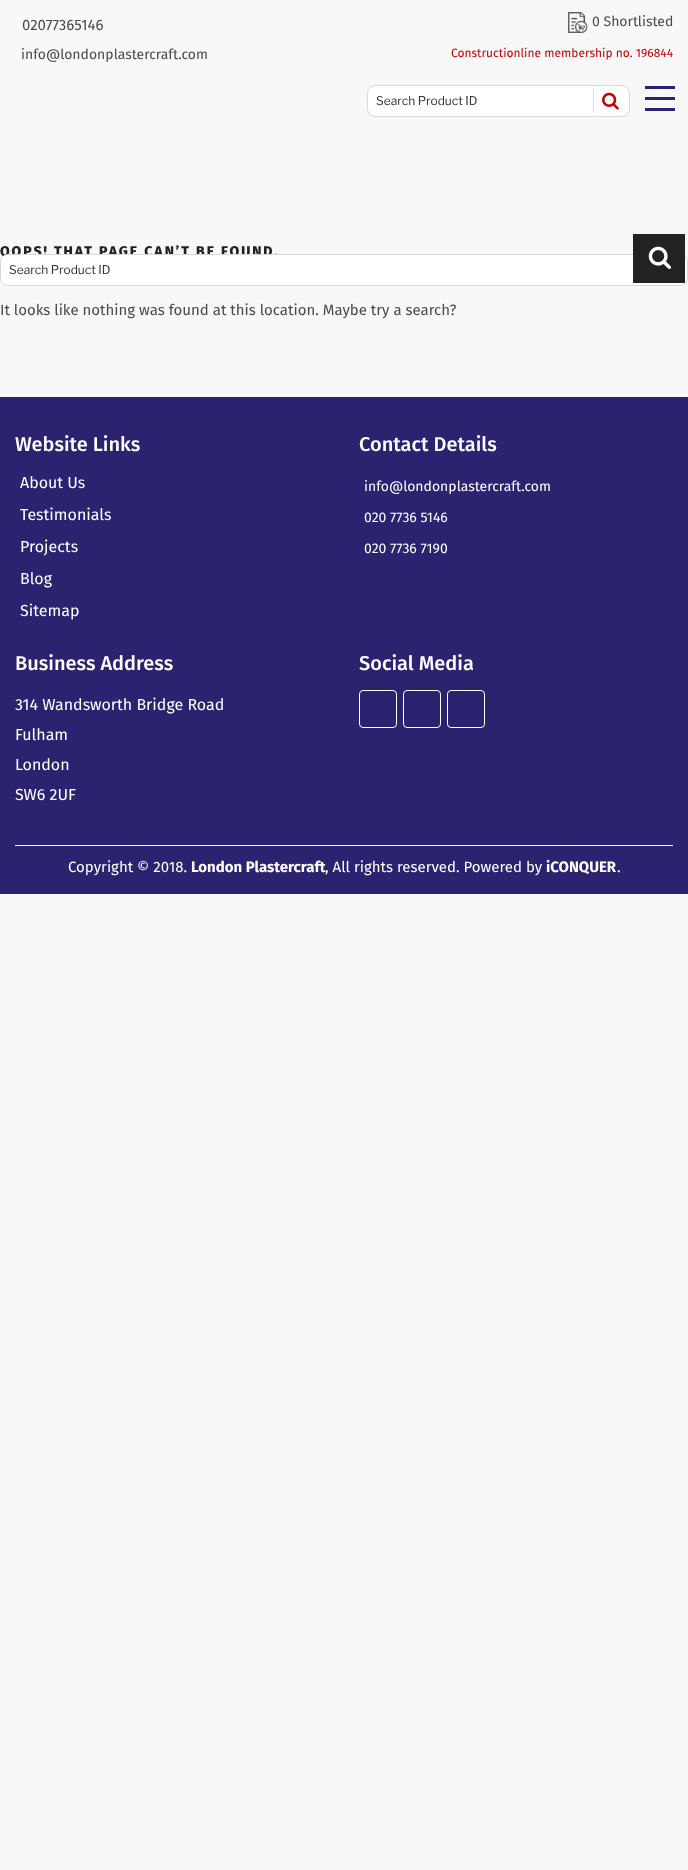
<svg xmlns="http://www.w3.org/2000/svg" width="688" height="1870" viewBox="0 0 688 1870">
  <rect width="100%" height="100%" fill="#f8f8f8"/>
  <rect x="367.5" y="85.5" width="262" height="31" rx="7.5" fill="#fff" stroke="#d9d9da"/>
  <path d="M593 88h1v25H593z" fill="#ddd"/>
  <image x="602" y="92" width="17" height="18" href="img/1.png"/>
  <path d="M645 86h30v3H645z" fill="#2b236f"/>
  <path d="M645 97h30v3H645z" fill="#2b236f"/>
  <path d="M645 108h30v3H645z" fill="#2b236f"/>
  <image x="568" y="12" width="20" height="21" href="img/2.png"/>
  <path d="M0 397h688v497H0z" fill="#2b236f"/>
  <rect x="359.5" y="690.5" width="37" height="37" rx="3.5" fill="none" stroke="#fff"/>
  <rect x="403.5" y="690.5" width="37" height="37" rx="3.5" fill="none" stroke="#fff"/>
  <rect x="447.5" y="690.5" width="37" height="37" rx="3.5" fill="none" stroke="#fff"/>
  <path d="M15 845h658v1H15z" fill="#fff"/>
  <text x="22" y="30" font-family="Fira Sans" font-size="15" fill="#4a4a49">02077365146</text>
  <text x="21" y="59" font-family="Fira Sans" font-size="14" fill="#4a4a49">info@londonplastercraft.com</text>
  <text x="376" y="105" font-family="Libre Franklin" font-size="12" fill="#333">Search Product ID</text>
  <text x="592" y="26" font-family="Fira Sans" font-size="14" fill="#4a4a49">0 Shortlisted</text>
  <text x="451" y="57" font-family="Fira Sans" font-size="12" fill="#bf0605">Constructionline membership no. 196844</text>
  <text x="0" y="256" font-family="Fira Sans" font-size="14" font-weight="800" letter-spacing="1.95" fill="#222">OOPS! THAT PAGE CAN’T BE FOUND.</text>
  <rect x="0.5" y="254.5" width="687" height="31" rx="7.5" fill="#fff" stroke="#d9d9da"/>
  <text x="9" y="274" font-family="Libre Franklin" font-size="12" fill="#333">Search Product ID</text>
  <path d="M633 234h52v49H633z" fill="#222"/>
  <image x="648" y="246" width="23" height="23" href="img/3.png"/>
  <text x="0" y="315" font-family="Fira Sans" font-size="15" fill="#4a4a49">It looks like nothing was found at this location. Maybe try a search?</text>
  <text x="15" y="451" font-family="Fira Sans" font-size="20" font-weight="500" fill="#fff">Website Links</text>
  <g font-family="Fira Sans" font-size="16" fill="#fff">
    <text x="20" y="488">About Us</text>
    <text x="20" y="520">Testimonials</text>
    <text x="20" y="552">Projects</text>
    <text x="20" y="584">Blog</text>
    <text x="20" y="616">Sitemap</text>
  </g>
  <text x="359" y="451" font-family="Fira Sans" font-size="20" font-weight="500" fill="#fff">Contact Details</text>
  <g font-family="Fira Sans" font-size="14" fill="#fff">
    <text x="364" y="491">info@londonplastercraft.com</text>
    <text x="364" y="522">020 7736 5146</text>
    <text x="364" y="553">020 7736 7190</text>
  </g>
  <text x="15" y="670" font-family="Fira Sans" font-size="20" font-weight="500" fill="#fff">Business Address</text>
  <g font-family="Fira Sans" font-size="16" fill="#fff">
    <text x="15" y="710">314 Wandsworth Bridge Road</text>
    <text x="15" y="740">Fulham</text>
    <text x="15" y="770">London</text>
    <text x="15" y="800">SW6 2UF</text>
  </g>
  <text x="359" y="670" font-family="Fira Sans" font-size="20" font-weight="500" fill="#fff">Social Media</text>
  <text x="68" y="872" font-family="Fira Sans" font-size="15" fill="#fff">Copyright © 2018.</text>
  <text x="191" y="872" font-family="Fira Sans" font-size="15" font-weight="bold" fill="#fff">London Plastercraft</text>
  <text x="325" y="872" font-family="Fira Sans" font-size="15" fill="#fff">, All rights reserved. Powered by</text>
  <text x="546" y="872" font-family="Fira Sans" font-size="15" font-weight="bold" fill="#fff">iCONQUER</text>
  <text x="617" y="872" font-family="Fira Sans" font-size="15" fill="#fff">.</text>
</svg>
